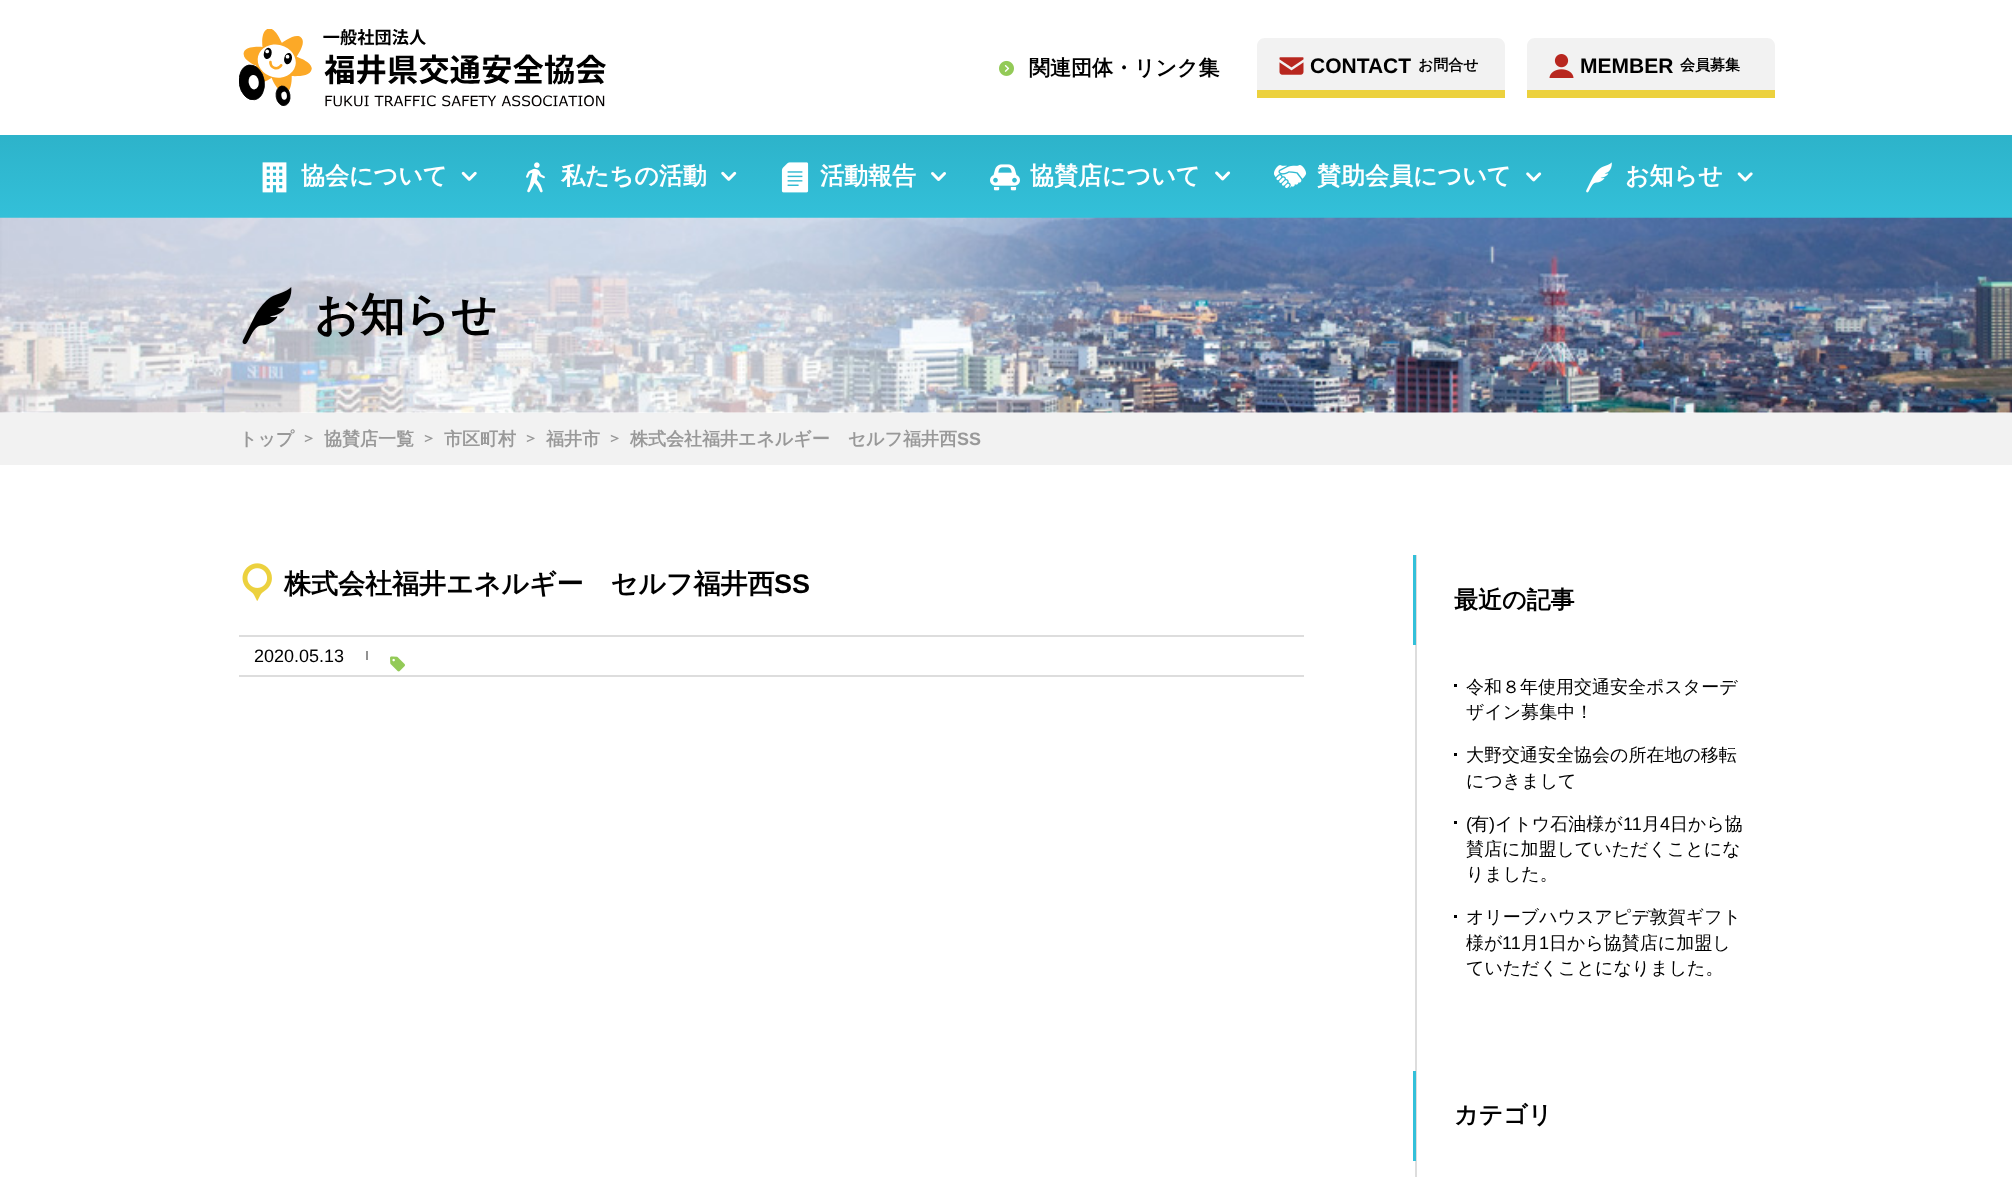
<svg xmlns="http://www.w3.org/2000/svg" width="2012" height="1177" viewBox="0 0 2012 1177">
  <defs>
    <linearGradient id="g1" gradientUnits="userSpaceOnUse" x1="1007" y1="135" x2="1007" y2="218"><stop offset="0" stop-color="#2db3ca"/><stop offset="1" stop-color="#33c0d9"/></linearGradient>
  </defs>
  <rect width="100%" height="100%" fill="#fff"/>
  <image x="239" y="29" width="367" height="78" href="img/1.png"/>
  <image x="999" y="60" width="15" height="16" href="img/2.png"/>
  <path d="M1265 38H1497C1501.5 38 1505 41.5 1505 46V98H1257V46C1257 41.5 1260.5 38 1265 38Z" fill="#f2f2f2"/>
  <path d="M1257 90h248v8H1257z" fill="#ecd13e"/>
  <image x="1279" y="57" width="25" height="18" href="img/3.png"/>
  <path d="M1535 38H1767C1771.5 38 1775 41.5 1775 46V98H1527V46C1527 41.5 1530.5 38 1535 38Z" fill="#f2f2f2"/>
  <path d="M1527 90h248v8H1527z" fill="#ecd13e"/>
  <image x="1549" y="54" width="25" height="24" href="img/4.png"/>
  <path d="M0 135h2012v83H0z" fill="url(#g1)"/>
  <image x="262" y="162" width="25" height="31" href="img/5.png"/>
  <image x="461" y="171" width="16" height="10" href="img/6.png"/>
  <image x="526" y="162" width="19" height="31" href="img/7.png"/>
  <image x="721" y="171" width="16" height="10" href="img/8.png"/>
  <image x="781" y="162" width="28" height="31" href="img/9.png"/>
  <image x="931" y="172" width="15" height="9" href="img/10.png"/>
  <image x="990" y="164" width="30" height="27" href="img/11.png"/>
  <image x="1215" y="171" width="16" height="10" href="img/12.png"/>
  <image x="1274" y="165" width="33" height="23" href="img/13.png"/>
  <image x="1526" y="172" width="16" height="10" href="img/14.png"/>
  <image x="1586" y="162" width="26" height="31" href="img/15.png"/>
  <image x="1737" y="172" width="16" height="10" href="img/16.png"/>
  <image x="0" y="217" width="2012" height="196" href="img/17.png"/>
  <image x="242" y="287" width="50" height="58" href="img/18.png"/>
  <path d="M0 413h2012v52H0z" fill="#f2f2f2"/>
  <image x="242" y="563" width="30" height="38" href="img/19.png"/>
  <path d="M239 635h1065v2H239z" fill="#ddd"/>
  <path d="M239 675h1065v2H239z" fill="#ddd"/>
  <path d="M366 651h2v9H366z" fill="#929292"/>
  <image x="390" y="656" width="15" height="16" href="img/20.png"/>
  <path d="M1415 555h2v622H1415z" fill="#ddd"/>
  <path d="M1413 555h3v90H1413z" fill="#33c0d9"/>
  <path d="M1454 684h3v3H1454z" fill="#000"/>
  <path d="M1454 753h3v3H1454z" fill="#000"/>
  <path d="M1454 821h3v3H1454z" fill="#000"/>
  <path d="M1454 915h3v3H1454z" fill="#000"/>
  <path d="M1413 1071h3v90H1413z" fill="#33c0d9"/>
  <text x="1029" y="75" font-family="WenQuanYi Zen Hei" font-size="21" font-weight="bold" fill="#000">関連団体・リンク集</text>
  <text x="1310" y="73" font-family="Liberation Sans" font-size="21" font-weight="bold" fill="#000">CONTACT</text>
  <text x="1418" y="70" font-family="WenQuanYi Zen Hei" font-size="15" font-weight="bold" fill="#000">お問合せ</text>
  <text x="1580" y="73" font-family="Liberation Sans" font-size="21" font-weight="bold" fill="#000">MEMBER</text>
  <text x="1680" y="70" font-family="WenQuanYi Zen Hei" font-size="15" font-weight="bold" fill="#000">会員募集</text>
  <g font-family="WenQuanYi Zen Hei" font-size="24" font-weight="bold" fill="#fff">
    <text x="301" y="184">協会について</text>
    <text x="561" y="184">私たちの活動</text>
    <text x="820" y="184">活動報告</text>
    <text x="1030" y="184">協賛店について</text>
    <text x="1317" y="184">賛助会員について</text>
    <text x="1625" y="184">お知らせ</text>
  </g>
  <text x="314" y="330" font-family="WenQuanYi Zen Hei" font-size="45" font-weight="bold" fill="#000">お知らせ</text>
  <text x="239" y="445" font-family="WenQuanYi Zen Hei" font-size="18" font-weight="bold" fill="#999">トップ</text>
  <text x="301" y="443" font-family="WenQuanYi Zen Hei" font-size="15" font-weight="bold" fill="#999">＞</text>
  <text x="324" y="445" font-family="WenQuanYi Zen Hei" font-size="18" font-weight="bold" fill="#999">協賛店一覧</text>
  <text x="421" y="443" font-family="WenQuanYi Zen Hei" font-size="15" font-weight="bold" fill="#999">＞</text>
  <text x="444" y="445" font-family="WenQuanYi Zen Hei" font-size="18" font-weight="bold" fill="#999">市区町村</text>
  <text x="523" y="443" font-family="WenQuanYi Zen Hei" font-size="15" font-weight="bold" fill="#999">＞</text>
  <text x="546" y="445" font-family="WenQuanYi Zen Hei" font-size="18" font-weight="bold" fill="#999">福井市</text>
  <text x="607" y="443" font-family="WenQuanYi Zen Hei" font-size="15" font-weight="bold" fill="#999">＞</text>
  <text x="630" y="445" font-family="WenQuanYi Zen Hei" font-size="18" font-weight="bold" fill="#999">株式会社福井エネルギー　セルフ福井西</text>
  <text x="957" y="445" font-family="Liberation Sans" font-size="18" font-weight="bold" fill="#999">SS</text>
  <text x="284" y="593" font-family="WenQuanYi Zen Hei" font-size="27" font-weight="bold" fill="#000">株式会社福井エネルギー　セルフ福井西</text>
  <text x="774" y="593" font-family="Liberation Sans" font-size="27" font-weight="bold" fill="#000">SS</text>
  <text x="254" y="662" font-family="Liberation Sans" font-size="18" fill="#000">2020.05.13</text>
  <text x="1454" y="608" font-family="WenQuanYi Zen Hei" font-size="24" font-weight="bold" fill="#000">最近の記事</text>
  <g font-family="WenQuanYi Zen Hei" font-size="18" font-weight="500" fill="#000">
    <text x="1466" y="693">令和８年使用交通安全ポスターデ</text>
    <text x="1466" y="718">ザイン募集中！</text>
    <text x="1466" y="761">大野交通安全協会の所在地の移転</text>
    <text x="1466" y="787">につきまして</text>
  </g>
  <text x="1466" y="830" font-family="Liberation Sans" font-size="18" fill="#000">(</text>
  <text x="1471" y="830" font-family="WenQuanYi Zen Hei" font-size="18" font-weight="500" fill="#000">有</text>
  <text x="1489" y="830" font-family="Liberation Sans" font-size="18" fill="#000">)</text>
  <text x="1495" y="830" font-family="WenQuanYi Zen Hei" font-size="18" font-weight="500" fill="#000">イトウ石油様が</text>
  <text x="1623" y="830" font-family="Liberation Sans" font-size="18" fill="#000">11</text>
  <text x="1642" y="830" font-family="WenQuanYi Zen Hei" font-size="18" font-weight="500" fill="#000">月</text>
  <text x="1660" y="830" font-family="Liberation Sans" font-size="18" fill="#000">4</text>
  <g font-family="WenQuanYi Zen Hei" font-size="18" font-weight="500" fill="#000">
    <text x="1670" y="830">日から協</text>
    <text x="1466" y="855">賛店に加盟していただくことにな</text>
    <text x="1466" y="880">りました。</text>
    <text x="1466" y="923">オリーブハウスアピデ敦賀ギフト</text>
    <text x="1466" y="949">様が</text>
  </g>
  <text x="1502" y="949" font-family="Liberation Sans" font-size="18" fill="#000">11</text>
  <text x="1521" y="949" font-family="WenQuanYi Zen Hei" font-size="18" font-weight="500" fill="#000">月</text>
  <text x="1539" y="949" font-family="Liberation Sans" font-size="18" fill="#000">1</text>
  <g font-family="WenQuanYi Zen Hei" font-size="18" font-weight="500" fill="#000">
    <text x="1549" y="949">日から協賛店に加盟し</text>
    <text x="1466" y="974">ていただくことになりました。</text>
  </g>
  <text x="1454" y="1123" font-family="WenQuanYi Zen Hei" font-size="24" font-weight="bold" fill="#000">カテゴリ</text>
</svg>
